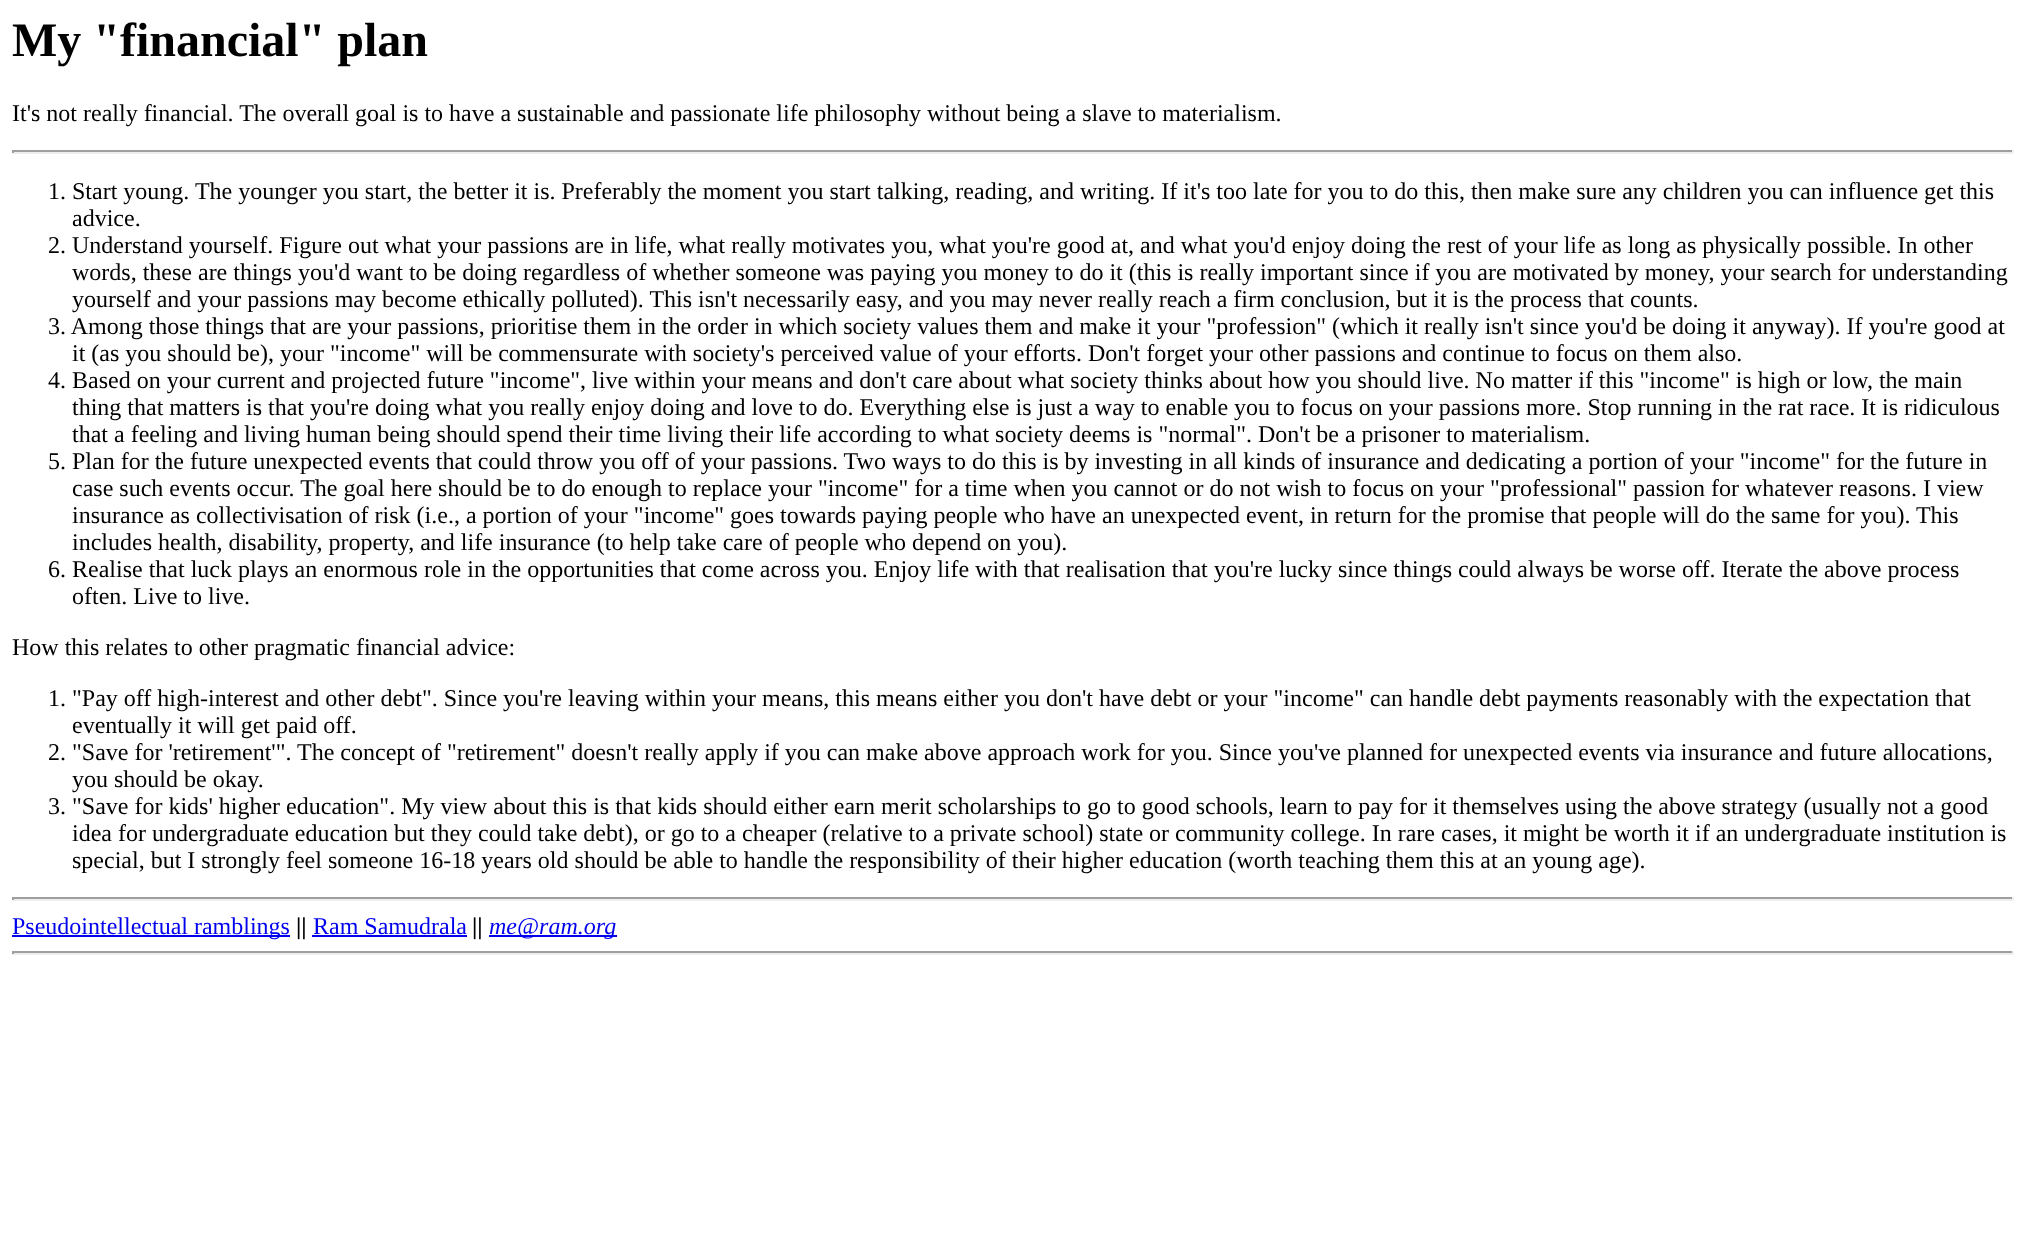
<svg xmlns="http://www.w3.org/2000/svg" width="2025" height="1245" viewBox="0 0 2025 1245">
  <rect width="100%" height="100%" fill="#fff"/>
  <path d="M12 150h2001v2H12z" fill="#9f9f9f"/>
  <path d="M2012 150h2v3H2012z" fill="#eee"/>
  <path d="M12 152h2001v2H12z" fill="#eee"/>
  <path d="M12 150h2v3H12z" fill="#9f9f9f"/>
  <path d="M12 897h2001v2H12z" fill="#9f9f9f"/>
  <path d="M2012 897h2v3H2012z" fill="#eee"/>
  <path d="M12 899h2001v2H12z" fill="#eee"/>
  <path d="M12 897h2v3H12z" fill="#9f9f9f"/>
  <path d="M12 935h278v2H12z" fill="#00e"/>
  <path d="M312 935h155v2H312z" fill="#00e"/>
  <path d="M489 935h128v2H489z" fill="#00e"/>
  <path d="M12 951h2001v2H12z" fill="#9f9f9f"/>
  <path d="M2012 951h2v3H2012z" fill="#eee"/>
  <path d="M12 953h2001v2H12z" fill="#eee"/>
  <path d="M12 951h2v3H12z" fill="#9f9f9f"/>
  <text x="12" y="56" font-family="Liberation Serif" font-size="48" font-weight="bold" fill="#000">My "financial" plan</text>
  <g font-family="Liberation Serif" font-size="24" fill="#000">
    <text x="12" y="121">It's not really financial. The overall goal is to have a sustainable and passionate life philosophy without being a slave to materialism.</text>
    <text x="48" y="199">1. Start young. The younger you start, the better it is. Preferably the moment you start talking, reading, and writing. If it's too late for you to do this, then make sure any children you can influence get this</text>
    <text x="72" y="226">advice.</text>
    <text x="48" y="253">2. Understand yourself. Figure out what your passions are in life, what really motivates you, what you're good at, and what you'd enjoy doing the rest of your life as long as physically possible. In other</text>
    <text x="72" y="280">words, these are things you'd want to be doing regardless of whether someone was paying you money to do it (this is really important since if you are motivated by money, your search for understanding</text>
    <text x="72" y="307">yourself and your passions may become ethically polluted). This isn't necessarily easy, and you may never really reach a firm conclusion, but it is the process that counts.</text>
    <text x="48" y="334">3. Among those things that are your passions, prioritise them in the order in which society values them and make it your "profession" (which it really isn't since you'd be doing it anyway). If you're good at</text>
    <text x="72" y="361">it (as you should be), your "income" will be commensurate with society's perceived value of your efforts. Don't forget your other passions and continue to focus on them also.</text>
    <text x="48" y="388">4. Based on your current and projected future "income", live within your means and don't care about what society thinks about how you should live. No matter if this "income" is high or low, the main</text>
    <text x="72" y="415">thing that matters is that you're doing what you really enjoy doing and love to do. Everything else is just a way to enable you to focus on your passions more. Stop running in the rat race. It is ridiculous</text>
    <text x="72" y="442">that a feeling and living human being should spend their time living their life according to what society deems is "normal". Don't be a prisoner to materialism.</text>
    <text x="48" y="469">5. Plan for the future unexpected events that could throw you off of your passions. Two ways to do this is by investing in all kinds of insurance and dedicating a portion of your "income" for the future in</text>
    <text x="72" y="496">case such events occur. The goal here should be to do enough to replace your "income" for a time when you cannot or do not wish to focus on your "professional" passion for whatever reasons. I view</text>
    <text x="72" y="523">insurance as collectivisation of risk (i.e., a portion of your "income" goes towards paying people who have an unexpected event, in return for the promise that people will do the same for you). This</text>
    <text x="72" y="550">includes health, disability, property, and life insurance (to help take care of people who depend on you).</text>
    <text x="48" y="577">6. Realise that luck plays an enormous role in the opportunities that come across you. Enjoy life with that realisation that you're lucky since things could always be worse off. Iterate the above process</text>
    <text x="72" y="604">often. Live to live.</text>
    <text x="12" y="655">How this relates to other pragmatic financial advice:</text>
    <text x="48" y="706">1. "Pay off high-interest and other debt". Since you're leaving within your means, this means either you don't have debt or your "income" can handle debt payments reasonably with the expectation that</text>
    <text x="72" y="733">eventually it will get paid off.</text>
    <text x="48" y="760">2. "Save for 'retirement'". The concept of "retirement" doesn't really apply if you can make above approach work for you. Since you've planned for unexpected events via insurance and future allocations,</text>
    <text x="72" y="787">you should be okay.</text>
    <text x="48" y="814">3. "Save for kids' higher education". My view about this is that kids should either earn merit scholarships to go to good schools, learn to pay for it themselves using the above strategy (usually not a good</text>
    <text x="72" y="841">idea for undergraduate education but they could take debt), or go to a cheaper (relative to a private school) state or community college. In rare cases, it might be worth it if an undergraduate institution is</text>
    <text x="72" y="868">special, but I strongly feel someone 16-18 years old should be able to handle the responsibility of their higher education (worth teaching them this at an young age).</text>
  </g>
  <text x="12" y="934" font-family="Liberation Serif" font-size="24" fill="#00e">Pseudointellectual ramblings</text>
  <text x="296" y="934" font-family="Liberation Serif" font-size="24" font-weight="bold" fill="#000">||</text>
  <text x="313" y="934" font-family="Liberation Serif" font-size="24" fill="#00e">Ram Samudrala</text>
  <text x="472" y="934" font-family="Liberation Serif" font-size="24" font-weight="bold" fill="#000">||</text>
  <text x="489" y="934" font-family="Liberation Serif" font-size="24" font-style="italic" fill="#00e">me@ram.org</text>
</svg>
